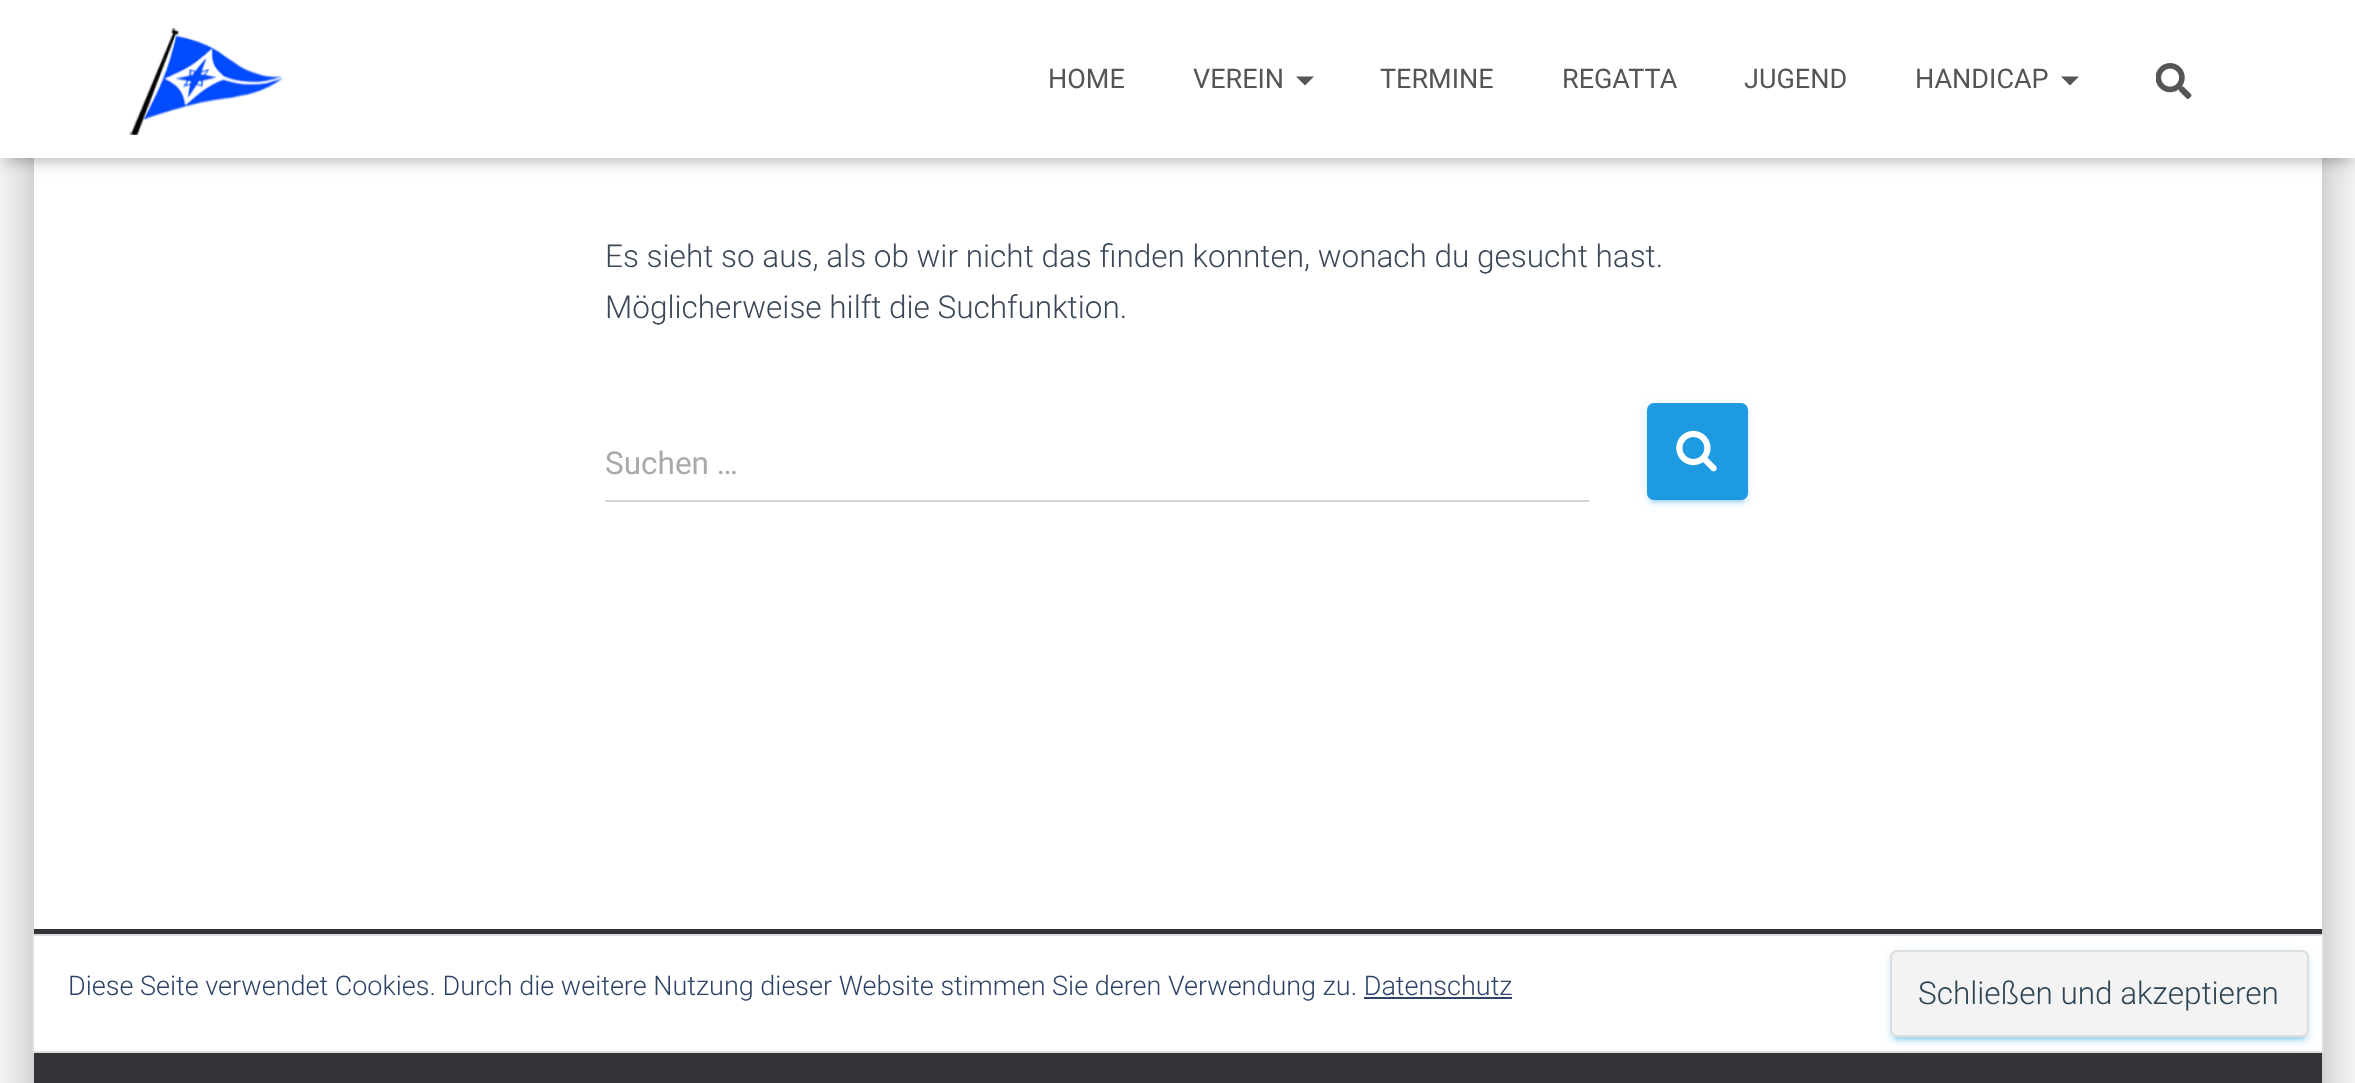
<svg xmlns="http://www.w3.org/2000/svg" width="2355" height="1083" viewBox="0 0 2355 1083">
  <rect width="100%" height="100%" fill="#fff"/>
  <rect x="45" y="-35" width="2266" height="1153" rx="2" fill="#00000033" filter="blur(11px)"/>
  <rect x="23" y="-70" width="2310" height="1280" rx="25" fill="#0000001f" filter="blur(34px)"/>
  <rect x="29" y="-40" width="2298" height="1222" rx="18" fill="#00000024" filter="blur(27px)"/>
  <path d="M34 158h2288v771H34z" fill="#fff"/>
  <path d="M5 14h2346v148H5z" fill="#0000001a" filter="blur(5.5px)"/>
  <path d="M0 2h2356v158H0z" fill="#0000001f" filter="blur(11px)"/>
  <path d="M14 16h2328v130H14z" fill="#0000006b" filter="blur(11px)"/>
  <path d="M0 0h2355v158H0z" fill="#fff"/>
  <image x="129" y="28" width="155" height="107" href="img/1.png"/>
  <path d="M1296 76.5H1314L1305 85.5Z" fill="#555"/>
  <path d="M2061 76.5H2079L2070 85.5Z" fill="#555"/>
  <image x="2156" y="63" width="36" height="36" href="img/2.png"/>
  <path d="M605 500h984v2H605z" fill="#d2d2d2"/>
  <rect x="1647" y="405" width="101" height="97" rx="7" fill="#1d9ae21f" filter="blur(5.5px)"/>
  <rect x="1652" y="414" width="92" height="88" rx="2" fill="#1d9ae233" filter="blur(1px)"/>
  <rect x="1647" y="407" width="101" height="97" rx="7" fill="#1d9ae224" filter="blur(2px)"/>
  <rect x="1647" y="403" width="101" height="97" rx="7" fill="#1d9ae2"/>
  <image x="1676" y="430" width="41" height="42" href="img/3.png"/>
  <path d="M34 929h2288v154H34z" fill="#323437"/>
  <path d="M33 935h2290v117H33z" fill="#fff" stroke="#dedede" stroke-width="2"/>
  <rect x="1890" y="952" width="419" height="88" rx="7" fill="#1d9ae21f" filter="blur(5.5px)"/>
  <rect x="1895" y="961" width="409" height="79" rx="2" fill="#1d9ae233" filter="blur(1px)"/>
  <rect x="1890" y="954" width="419" height="88" rx="7" fill="#1d9ae224" filter="blur(2px)"/>
  <rect x="1891" y="951" width="417" height="85" rx="6" fill="#f3f3f3" stroke="#dedede" stroke-width="2"/>
  <path d="M1364 997h148v2H1364z" fill="#2e4467"/>
  <g font-family="Roboto" font-size="27" fill="#555">
    <text x="1048" y="88">HOME</text>
    <text x="1193" y="88">VEREIN</text>
    <text x="1380" y="88">TERMINE</text>
    <text x="1562" y="88">REGATTA</text>
    <text x="1744" y="88">JUGEND</text>
    <text x="1915" y="88">HANDICAP</text>
  </g>
  <g font-family="Roboto" font-size="31.5" font-weight="300" fill="#3c4858">
    <text x="605" y="267">Es sieht so aus, als ob wir nicht das finden konnten, wonach du gesucht hast.</text>
    <text x="605" y="318">Möglicherweise hilft die Suchfunktion.</text>
  </g>
  <text x="605" y="474" font-family="Roboto" font-size="31.5" fill="#aaa">Suchen …</text>
  <text x="68" y="995" font-family="Roboto" font-size="27" font-weight="300" fill="#2e4467">Diese Seite verwendet Cookies. Durch die weitere Nutzung dieser Website stimmen Sie deren Verwendung zu. Datenschutz</text>
  <text x="1918" y="1004" font-family="Roboto" font-size="31.5" font-weight="300" fill="#2e4453">Schließen und akzeptieren</text>
</svg>
